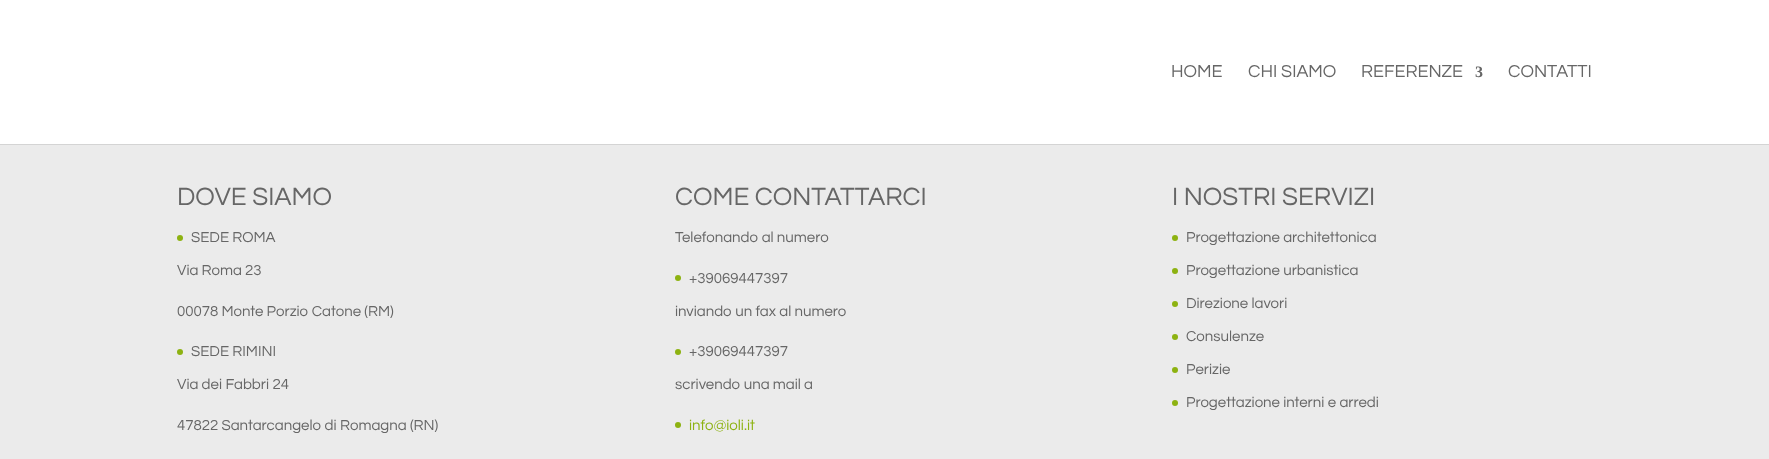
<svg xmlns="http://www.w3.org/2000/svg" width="1769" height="459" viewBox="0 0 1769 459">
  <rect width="100%" height="100%" fill="#ebebeb"/>
  <path d="M0 144h1769v1H0z" fill="#d4d4d4"/>
  <path d="M0 0h1769v144H0z" fill="#fff"/>
  <circle cx="180" cy="238" r="3" fill="#8db211"/>
  <circle cx="180" cy="352" r="3" fill="#8db211"/>
  <circle cx="678" cy="278" r="3" fill="#8db211"/>
  <circle cx="678" cy="352" r="3" fill="#8db211"/>
  <circle cx="678" cy="425" r="3" fill="#8db211"/>
  <circle cx="1175" cy="238" r="3" fill="#8db211"/>
  <circle cx="1175" cy="271" r="3" fill="#8db211"/>
  <circle cx="1175" cy="304" r="3" fill="#8db211"/>
  <circle cx="1175" cy="337" r="3" fill="#8db211"/>
  <circle cx="1175" cy="370" r="3" fill="#8db211"/>
  <circle cx="1175" cy="403" r="3" fill="#8db211"/>
  <g font-family="Questrial" font-size="18" fill="#666">
    <text x="1171" y="77">HOME</text>
    <text x="1248" y="77">CHI SIAMO</text>
    <text x="1361" y="77">REFERENZE</text>
  </g>
  <text x="1475" y="77" font-family="Liberation Serif" font-size="16" font-weight="bold" fill="#666">3</text>
  <text x="1508" y="77" font-family="Questrial" font-size="18" fill="#666">CONTATTI</text>
  <text x="177" y="205" font-family="Questrial" font-size="26" fill="#666">DOVE SIAMO</text>
  <g font-family="Questrial" font-size="15" fill="#666">
    <text x="191" y="242">SEDE ROMA</text>
    <text x="177" y="275">Via Roma 23</text>
    <text x="177" y="316">00078 Monte Porzio Catone (RM)</text>
    <text x="191" y="356">SEDE RIMINI</text>
    <text x="177" y="389">Via dei Fabbri 24</text>
    <text x="177" y="430">47822 Santarcangelo di Romagna (RN)</text>
  </g>
  <text x="675" y="205" font-family="Questrial" font-size="26" fill="#666">COME CONTATTARCI</text>
  <g font-family="Questrial" font-size="15" fill="#666">
    <text x="675" y="242">Telefonando al numero</text>
    <text x="689" y="283">+39069447397</text>
    <text x="675" y="316">inviando un fax al numero</text>
    <text x="689" y="356">+39069447397</text>
    <text x="675" y="389">scrivendo una mail a</text>
  </g>
  <text x="689" y="430" font-family="Questrial" font-size="15" fill="#8db211">info@ioli.it</text>
  <text x="1172" y="205" font-family="Questrial" font-size="26" fill="#666">I NOSTRI SERVIZI</text>
  <g font-family="Questrial" font-size="15" fill="#666">
    <text x="1186" y="242">Progettazione architettonica</text>
    <text x="1186" y="275">Progettazione urbanistica</text>
    <text x="1186" y="308">Direzione lavori</text>
    <text x="1186" y="341">Consulenze</text>
    <text x="1186" y="374">Perizie</text>
    <text x="1186" y="407">Progettazione interni e arredi</text>
  </g>
</svg>
